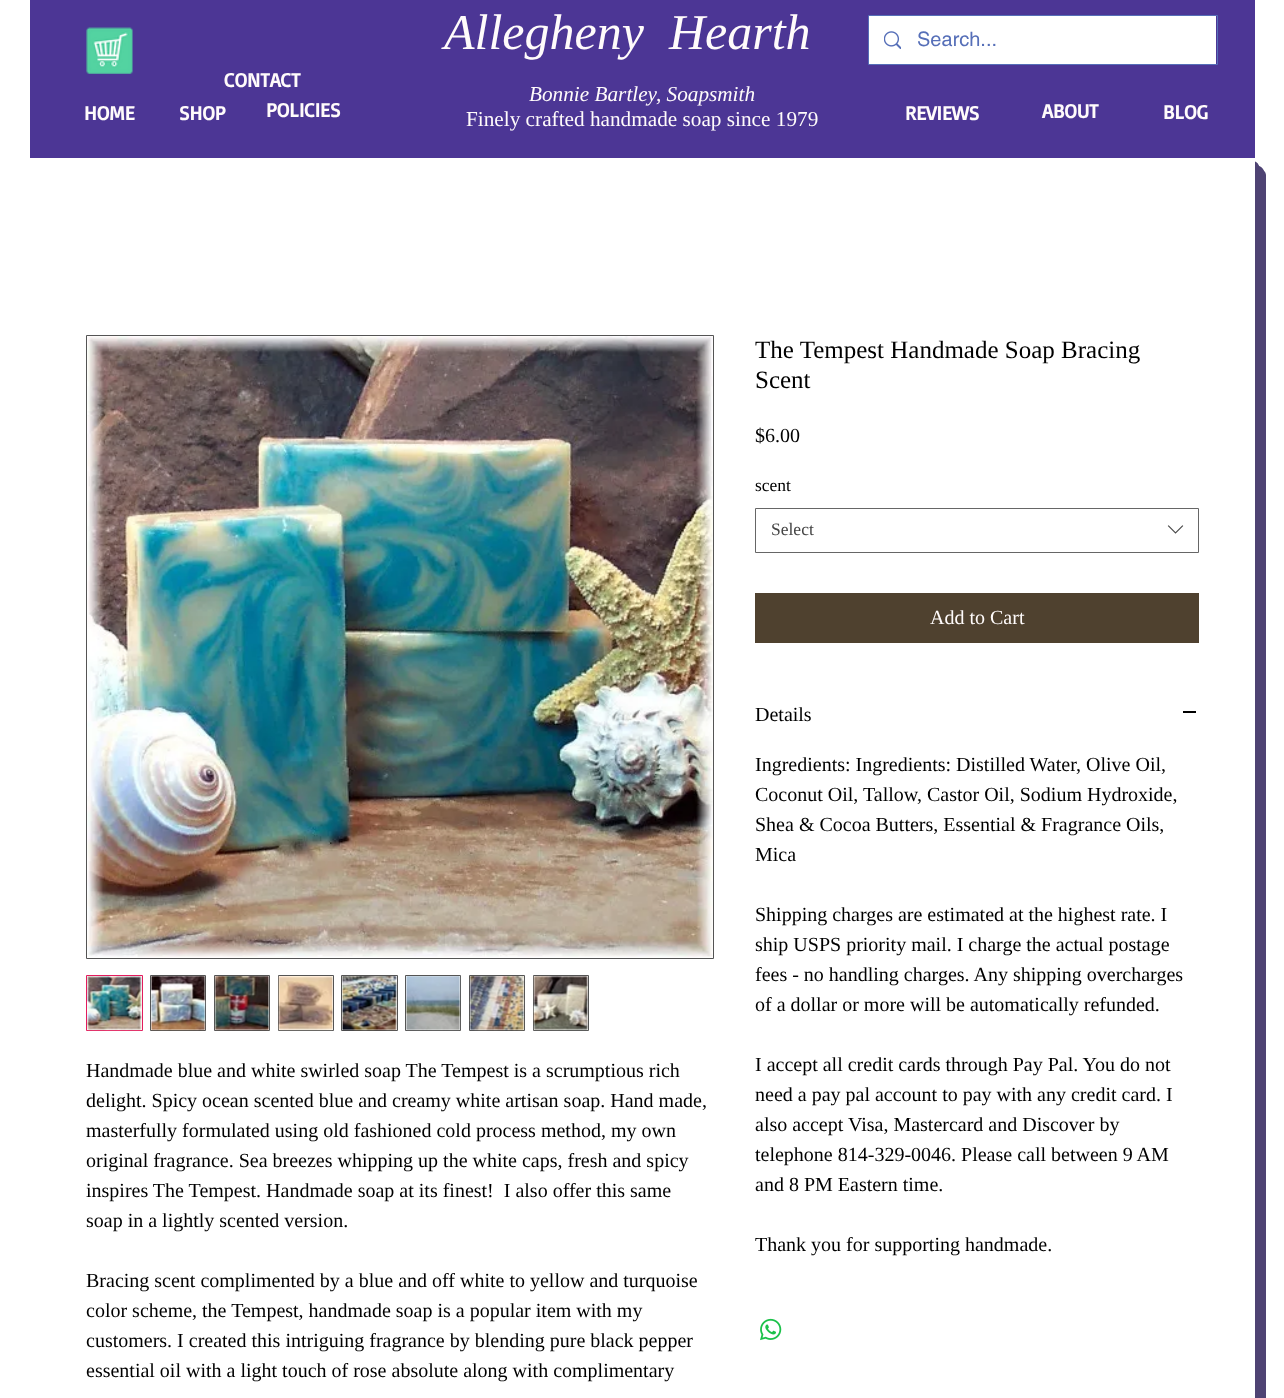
<svg xmlns="http://www.w3.org/2000/svg" width="1284" height="1398" viewBox="0 0 1284 1398">
  <rect width="100%" height="100%" fill="#fff"/>
  <path d="M30 0h1225v158H30z" fill="#4c3695"/>
  <image x="86" y="27" width="47" height="47" href="img/1.png"/>
  <path d="M868.5 15.5h349v49H868.5z" fill="none" stroke="#566fb8"/>
  <path d="M869 16h347v48H869z" fill="#fff"/>
  <image x="884" y="31" width="17" height="18" href="img/2.png"/>
  <path d="M41 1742V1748C41 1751 44 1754 47 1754H1260C1263 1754 1266 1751 1266 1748V175C1266 172 1263 169 1260 169H1255V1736C1255 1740 1252 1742 1249 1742Z" fill="#4e4373"/>
  <path d="M39 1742V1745C39 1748 42 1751 45 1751H1258C1261 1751 1264 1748 1264 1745V172C1264 169 1261 166 1258 166H1255V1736C1255 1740 1252 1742 1249 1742Z" fill="#4e4373"/>
  <path d="M36 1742V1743C36 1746 39 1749 42 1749H1255C1258 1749 1261 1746 1261 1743V170C1261 167 1258 164 1255 164V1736C1255 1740 1252 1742 1249 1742Z" fill="#4e4373"/>
  <path d="M34 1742C35 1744 37 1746 40 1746H1253C1256 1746 1259 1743 1259 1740V167C1259 164 1257 162 1254 161L1255 164V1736C1255 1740 1252 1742 1249 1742Z" fill="#4e4373"/>
  <path d="M31 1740C32 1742 34 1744 37 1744H1250C1253 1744 1256 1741 1256 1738V165C1256 163 1255 162 1254 161L1255 164V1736C1255 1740 1252 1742 1249 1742H36C34 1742 33 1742 31 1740Z" fill="#4e4373"/>
  <path d="M1254 161h1v3H1254z" fill="#fff"/>
  <path d="M86.5 335.5h627v623H86.5z" fill="none" stroke="#545454"/>
  <image x="87" y="336" width="626" height="622" href="img/3.png"/>
  <path d="M86.5 975.5h56v55H86.5z" fill="none" stroke="#e21b5d"/>
  <image x="87" y="976" width="55" height="55" href="img/4.png"/>
  <path d="M150.5 975.5h55v55H150.5z" fill="none" stroke="#545454"/>
  <image x="150" y="976" width="56" height="55" href="img/5.png"/>
  <path d="M214.5 975.5h55v55H214.5z" fill="none" stroke="#545454"/>
  <image x="214" y="976" width="55" height="55" href="img/6.png"/>
  <path d="M278.5 975.5h55v55H278.5z" fill="none" stroke="#545454"/>
  <image x="278" y="976" width="55" height="55" href="img/7.png"/>
  <path d="M341.5 975.5h56v55H341.5z" fill="none" stroke="#545454"/>
  <image x="342" y="976" width="55" height="55" href="img/8.png"/>
  <path d="M405.5 975.5h55v55H405.5z" fill="none" stroke="#545454"/>
  <image x="405" y="976" width="56" height="55" href="img/9.png"/>
  <path d="M469.5 975.5h55v55H469.5z" fill="none" stroke="#545454"/>
  <image x="469" y="976" width="56" height="55" href="img/10.png"/>
  <path d="M533.5 975.5h55v55H533.5z" fill="none" stroke="#545454"/>
  <image x="533" y="976" width="55" height="55" href="img/11.png"/>
  <path d="M755.5 508.5h443v44H755.5z" fill="none" stroke="#666"/>
  <image x="1167" y="525" width="17" height="9" href="img/12.png"/>
  <path d="M755 593h444v50H755z" fill="#4f412f"/>
  <path d="M1183 711h13v2H1183z" fill="#000"/>
  <image x="760" y="1318" width="22" height="23" href="img/13.png"/>
  <text x="444" y="49" font-family="Liberation Serif" font-size="50" font-style="italic" fill="#fffbfb" xml:space="preserve">Allegheny  Hearth</text>
  <text x="917" y="46" font-family="helvetica" font-size="20" fill="#566fb8">Search...</text>
  <g font-family="Basic" font-size="20" font-weight="bold" fill="#fffbfb">
    <text x="224" y="87">CONTACT</text>
    <text x="84" y="120">HOME</text>
    <text x="179" y="120">SHOP</text>
    <text x="266" y="117">POLICIES</text>
  </g>
  <text x="529" y="101" font-family="Liberation Serif" font-size="21.25" font-style="italic" fill="#fffbfb">Bonnie Bartley, Soapsmith</text>
  <text x="466" y="126" font-family="Liberation Serif" font-size="21.25" fill="#fffbfb">Finely crafted handmade soap since 1979</text>
  <g font-family="Basic" font-size="20" font-weight="bold" fill="#fffbfb">
    <text x="905" y="120">REVIEWS</text>
    <text x="1042" y="118">ABOUT</text>
    <text x="1163" y="119">BLOG</text>
  </g>
  <g font-family="Liberation Serif" font-size="20" fill="#000">
    <text x="86" y="1077">Handmade blue and white swirled soap The Tempest is a scrumptious rich</text>
    <text x="86" y="1107">delight. Spicy ocean scented blue and creamy white artisan soap. Hand made,</text>
    <text x="86" y="1137">masterfully formulated using old fashioned cold process method, my own</text>
    <text x="86" y="1167">original fragrance. Sea breezes whipping up the white caps, fresh and spicy</text>
    <text x="86" y="1197" xml:space="preserve">inspires The Tempest. Handmade soap at its finest!  I also offer this same</text>
    <text x="86" y="1227">soap in a lightly scented version.</text>
    <text x="86" y="1287">Bracing scent complimented by a blue and off white to yellow and turquoise</text>
    <text x="86" y="1317">color scheme, the Tempest, handmade soap is a popular item with my</text>
    <text x="86" y="1347">customers. I created this intriguing fragrance by blending pure black pepper</text>
    <text x="86" y="1377">essential oil with a light touch of rose absolute along with complimentary</text>
  </g>
  <g font-family="Liberation Serif" font-size="25" fill="#000">
    <text x="755" y="358">The Tempest Handmade Soap Bracing</text>
    <text x="755" y="388">Scent</text>
  </g>
  <text x="755" y="442" font-family="Liberation Serif" font-size="20" fill="#000">$6.00</text>
  <text x="755" y="491" font-family="Liberation Serif" font-size="17.5" fill="#000">scent</text>
  <text x="771" y="535" font-family="Liberation Serif" font-size="17.5" fill="#444">Select</text>
  <text x="930" y="624" font-family="Liberation Serif" font-size="20" fill="#fffbfb">Add to Cart</text>
  <g font-family="Liberation Serif" font-size="20" fill="#000">
    <text x="755" y="721">Details</text>
    <text x="755" y="771">Ingredients: Ingredients: Distilled Water, Olive Oil,</text>
    <text x="755" y="801">Coconut Oil, Tallow, Castor Oil, Sodium Hydroxide,</text>
    <text x="755" y="831">Shea &amp; Cocoa Butters, Essential &amp; Fragrance Oils,</text>
    <text x="755" y="861">Mica</text>
    <text x="755" y="921">Shipping charges are estimated at the highest rate. I</text>
    <text x="755" y="951">ship USPS priority mail. I charge the actual postage</text>
    <text x="755" y="981">fees - no handling charges. Any shipping overcharges</text>
    <text x="755" y="1011">of a dollar or more will be automatically refunded.</text>
    <text x="755" y="1071">I accept all credit cards through Pay Pal. You do not</text>
    <text x="755" y="1101">need a pay pal account to pay with any credit card. I</text>
    <text x="755" y="1131">also accept Visa, Mastercard and Discover by</text>
    <text x="755" y="1161">telephone 814-329-0046. Please call between 9 AM</text>
    <text x="755" y="1191">and 8 PM Eastern time.</text>
    <text x="755" y="1251">Thank you for supporting handmade.</text>
  </g>
</svg>
